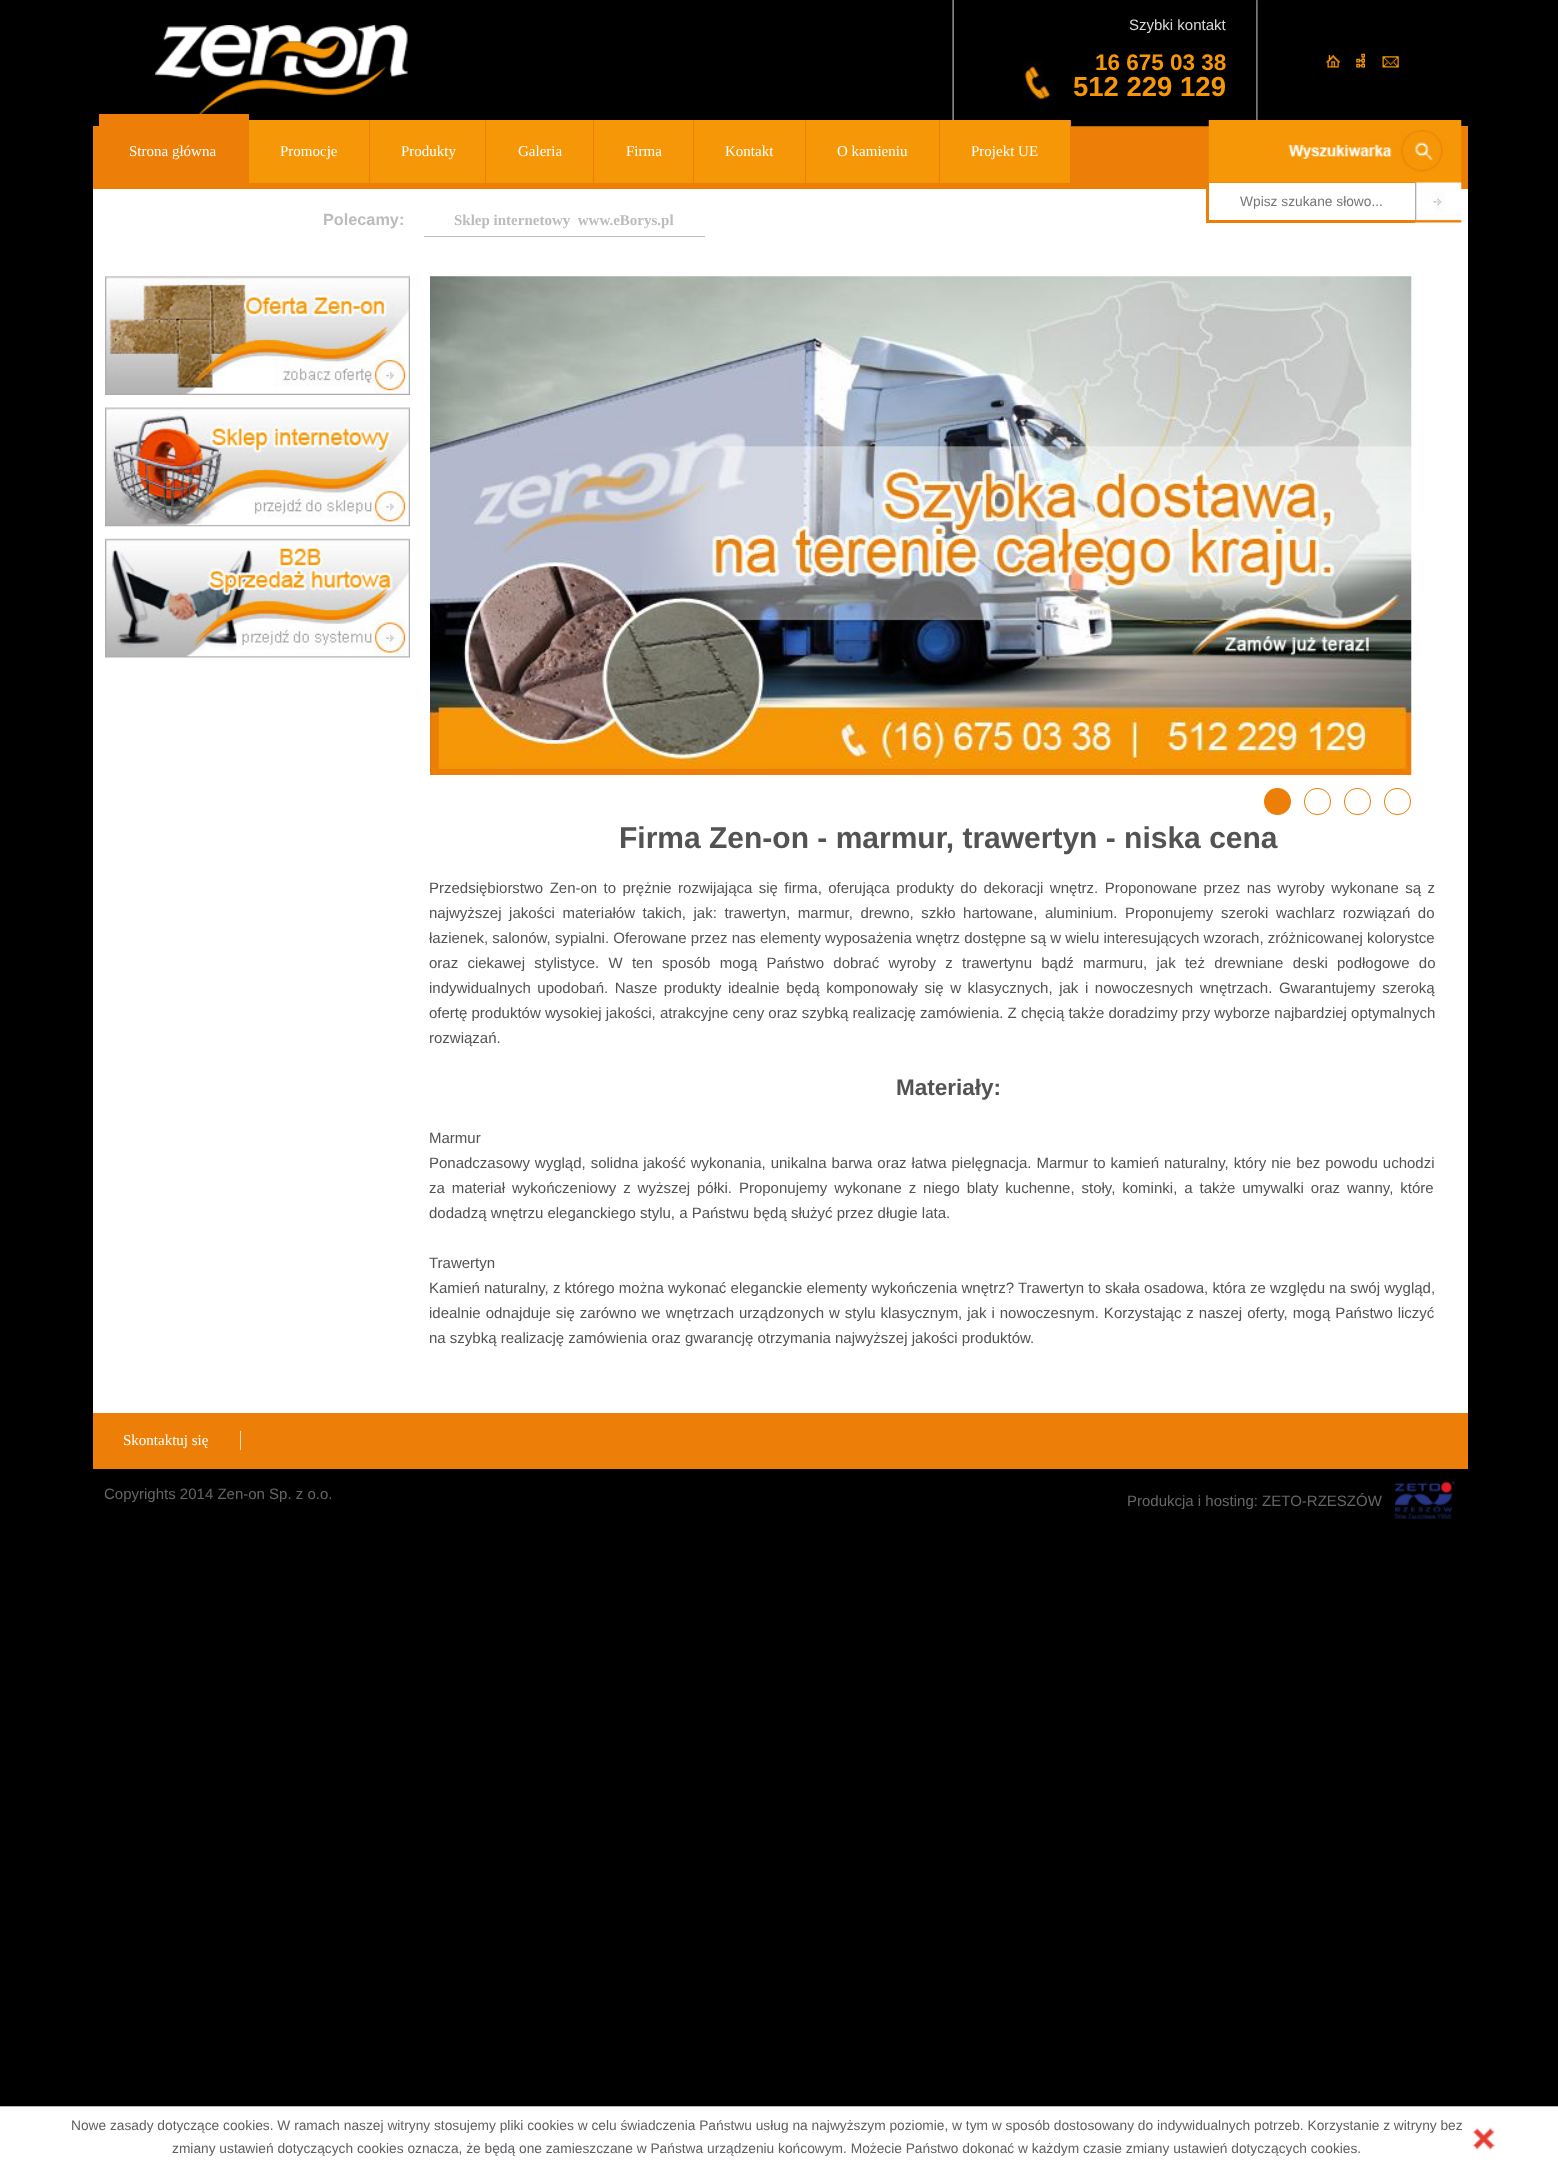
<svg xmlns="http://www.w3.org/2000/svg" width="1558" height="2164" viewBox="0 0 1558 2164">
  <rect width="100%" height="100%" fill="#000"/>
  <image x="155" y="25" width="253" height="89" href="img/1.png"/>
  <path d="M93 126h1375v63H93z" fill="#ed7f08"/>
  <image x="952" y="0" width="306" height="127" href="img/2.png"/>
  <image x="1326" y="55" width="14" height="13" href="img/3.png"/>
  <image x="1356" y="53" width="9" height="15" href="img/4.png"/>
  <image x="1382" y="56" width="17" height="12" href="img/5.png"/>
  <path d="M99 114h150v12H99z" fill="#ed7f08"/>
  <path d="M249 120h120v63H249z" fill="#f69707"/>
  <path d="M369 120h1v6H369z" fill="#ed7f08"/>
  <path d="M370 120h115v63H370z" fill="#f69707"/>
  <path d="M485 120h1v6H485z" fill="#ed7f08"/>
  <path d="M486 120h107v63H486z" fill="#f69707"/>
  <path d="M593 120h1v6H593z" fill="#ed7f08"/>
  <path d="M594 120h99v63H594z" fill="#f69707"/>
  <path d="M693 120h1v6H693z" fill="#ed7f08"/>
  <path d="M694 120h111v63H694z" fill="#f69707"/>
  <path d="M805 120h1v6H805z" fill="#ed7f08"/>
  <path d="M806 120h133v63H806z" fill="#f69707"/>
  <path d="M939 120h1v6H939z" fill="#ed7f08"/>
  <path d="M940 120h130v63H940z" fill="#f69707"/>
  <path d="M1070 120h1v7H1070z" fill="#ed7f08"/>
  <image x="1208" y="120" width="254" height="63" href="img/6.png"/>
  <path d="M1209 183h206v6H1209z" fill="#fff"/>
  <path d="M93 189h1375v1224H93z" fill="#fff"/>
  <path d="M1206 220h209v3H1206z" fill="#ed7f08"/>
  <path d="M1206 183h3v40H1206z" fill="#ed7f08"/>
  <image x="1415" y="182" width="47" height="41" href="img/7.png"/>
  <path d="M424 236h281v1H424z" fill="#bcbcbc"/>
  <image x="105" y="276" width="305" height="119" href="img/8.png"/>
  <image x="105" y="407" width="305" height="120" href="img/9.png"/>
  <image x="105" y="538" width="305" height="120" href="img/10.png"/>
  <image x="430" y="276" width="982" height="499" href="img/11.png"/>
  <rect x="1264.5" y="788.5" width="26" height="26" rx="12.5" fill="#ed7f08" stroke="#ed7f08"/>
  <rect x="1304.5" y="788.5" width="26" height="26" rx="12.5" fill="none" stroke="#ed7f08"/>
  <rect x="1344.5" y="788.5" width="26" height="26" rx="12.5" fill="none" stroke="#ed7f08"/>
  <rect x="1384.5" y="788.5" width="26" height="26" rx="12.5" fill="none" stroke="#ed7f08"/>
  <path d="M93 1413h1375v56H93z" fill="#ed7f08"/>
  <path d="M240 1431h1v19H240z" fill="#faddbd"/>
  <image x="1395" y="1481" width="60" height="38" href="img/12.png"/>
  <path d="M0 2107h1558v57H0z" fill="#fff"/>
  <path d="M0 2106h1558v1H0z" fill="#b3b3b3"/>
  <image x="1472" y="2127" width="24" height="23" href="img/13.png"/>
  <text x="1129" y="30" font-family="Liberation Sans" font-size="15" fill="#d9d9d9">Szybki kontakt</text>
  <text x="1095" y="70" font-family="Liberation Sans" font-size="22.5" font-weight="bold" fill="#f69707">16 675 03 38</text>
  <text x="1073" y="96" font-family="Liberation Sans" font-size="27.5" font-weight="bold" fill="#f69707">512 229 129</text>
  <g font-family="Liberation Serif" font-size="15" fill="#fff">
    <text x="129" y="156">Strona główna</text>
    <text x="280" y="156">Promocje</text>
    <text x="401" y="156">Produkty</text>
    <text x="518" y="156">Galeria</text>
    <text x="626" y="156">Firma</text>
    <text x="725" y="156">Kontakt</text>
    <text x="837" y="156">O kamieniu</text>
    <text x="971" y="156">Projekt UE</text>
  </g>
  <text x="1240" y="206" font-family="Liberation Sans" font-size="13.75" fill="#767676">Wpisz szukane słowo...</text>
  <text x="323" y="225" font-family="Liberation Sans" font-size="16.25" font-weight="bold" fill="#bcbcbc">Polecamy:</text>
  <text x="454" y="225" font-family="Liberation Serif" font-size="15" font-weight="bold" fill="#bcbcbc" xml:space="preserve">Sklep internetowy  www.eBorys.pl</text>
  <text x="619" y="848" font-family="Liberation Sans" font-size="30" font-weight="bold" fill="#545353">Firma Zen-on - marmur, trawertyn - niska cena</text>
  <g font-family="Liberation Sans" font-size="15" fill="#545353">
    <text x="429" y="893" word-spacing="2.25">Przedsiębiorstwo Zen-on to prężnie rozwijająca się firma, oferująca produkty do dekoracji wnętrz. Proponowane przez nas wyroby wykonane są z</text>
    <text x="429" y="918" word-spacing="3.4">najwyższej jakości materiałów takich, jak: trawertyn, marmur, drewno, szkło hartowane, aluminium. Proponujemy szeroki wachlarz rozwiązań do</text>
    <text x="429" y="943">łazienek, salonów, sypialni. Oferowane przez nas elementy wyposażenia wnętrz dostępne są w wielu interesujących wzorach, zróżnicowanej kolorystce</text>
    <text x="429" y="968" word-spacing="5.1">oraz ciekawej stylistyce. W ten sposób mogą Państwo dobrać wyroby z trawertynu bądź marmuru, jak też drewniane deski podłogowe do</text>
    <text x="429" y="993" word-spacing="2.4">indywidualnych upodobań. Nasze produkty idealnie będą komponowały się w klasycznych, jak i nowoczesnych wnętrzach. Gwarantujemy szeroką</text>
    <text x="429" y="1018">ofertę produktów wysokiej jakości, atrakcyjne ceny oraz szybką realizację zamówienia. Z chęcią także doradzimy przy wyborze najbardziej optymalnych</text>
    <text x="429" y="1043">rozwiązań.</text>
  </g>
  <text x="896" y="1095" font-family="Liberation Sans" font-size="22.5" font-weight="bold" fill="#545353">Materiały:</text>
  <g font-family="Liberation Sans" font-size="15" fill="#545353">
    <text x="429" y="1143">Marmur</text>
    <text x="429" y="1168" word-spacing="0.8">Ponadczasowy wygląd, solidna jakość wykonania, unikalna barwa oraz łatwa pielęgnacja. Marmur to kamień naturalny, który nie bez powodu uchodzi</text>
    <text x="429" y="1193" word-spacing="2.75">za materiał wykończeniowy z wyższej półki. Proponujemy wykonane z niego blaty kuchenne, stoły, kominki, a także umywalki oraz wanny, które</text>
    <text x="429" y="1218">dodadzą wnętrzu eleganckiego stylu, a Państwu będą służyć przez długie lata.</text>
    <text x="429" y="1268">Trawertyn</text>
    <text x="429" y="1293">Kamień naturalny, z którego można wykonać eleganckie elementy wykończenia wnętrz? Trawertyn to skała osadowa, która ze względu na swój wygląd,</text>
    <text x="429" y="1318" word-spacing="0.8">idealnie odnajduje się zarówno we wnętrzach urządzonych w stylu klasycznym, jak i nowoczesnym. Korzystając z naszej oferty, mogą Państwo liczyć</text>
    <text x="429" y="1343">na szybką realizację zamówienia oraz gwarancję otrzymania najwyższej jakości produktów.</text>
  </g>
  <text x="123" y="1445" font-family="Liberation Serif" font-size="15" fill="#fff">Skontaktuj się</text>
  <g font-family="Liberation Sans" font-size="15" fill="#666">
    <text x="104" y="1499">Copyrights 2014 Zen-on Sp. z o.o.</text>
    <text x="1127" y="1506">Produkcja i hosting: ZETO-RZESZÓW</text>
  </g>
  <g font-family="Liberation Sans" font-size="13.75" fill="#5f5f64">
    <text x="71" y="2130">Nowe zasady dotyczące cookies. W ramach naszej witryny stosujemy pliki cookies w celu świadczenia Państwu usług na najwyższym poziomie, w tym w sposób dostosowany do indywidualnych potrzeb. Korzystanie z witryny bez</text>
    <text x="172" y="2153">zmiany ustawień dotyczących cookies oznacza, że będą one zamieszczane w Państwa urządzeniu końcowym. Możecie Państwo dokonać w każdym czasie zmiany ustawień dotyczących cookies.</text>
  </g>
</svg>
